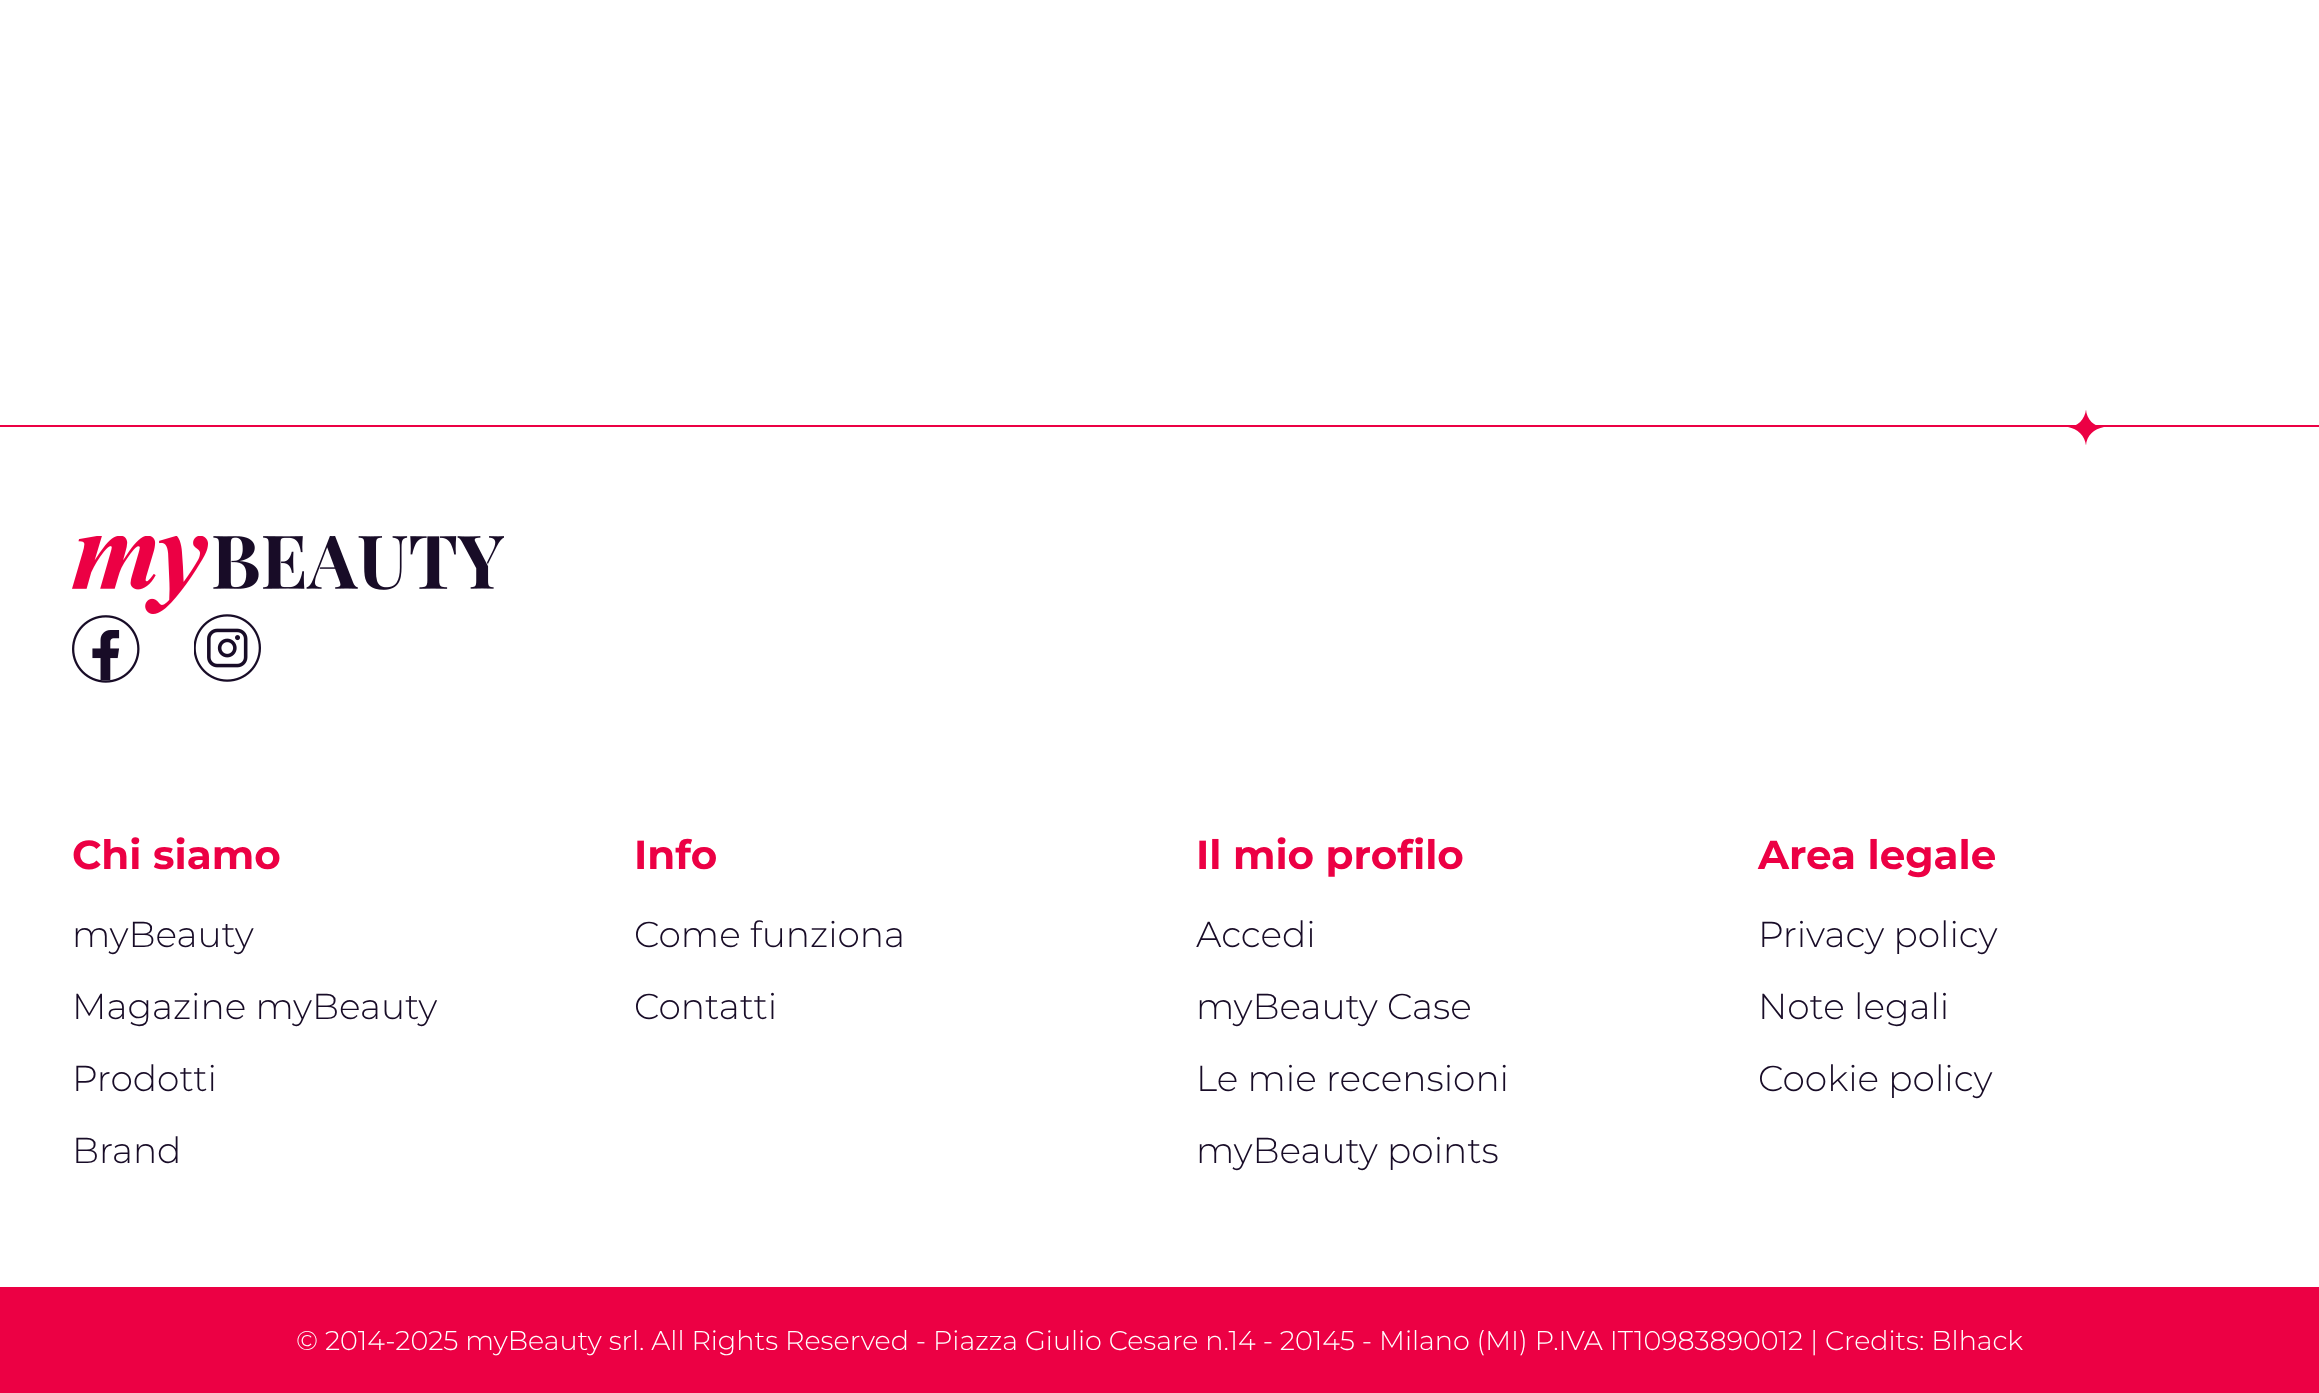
<svg xmlns="http://www.w3.org/2000/svg" width="2319" height="1393" viewBox="0 0 2319 1393">
  <rect width="100%" height="100%" fill="#fff"/>
  <path d="M0 425h2319v2H0z" fill="#ec0044"/>
  <path d="M2086 445.5C2085 436 2077.5 428 2068 427.5C2077.5 427 2085 419 2086 409.5C2086.5 419 2094 427 2104 427.5C2094 428 2086.5 436 2086 445.5Z" fill="#ec0044" fill-rule="evenodd"/>
  <image x="72" y="536" width="432" height="78" href="img/1.png"/>
  <image x="72" y="615" width="68" height="68" href="img/2.png"/>
  <image x="194" y="614" width="67" height="68" href="img/3.png"/>
  <path d="M0 1287h2319v106H0z" fill="#ec0044"/>
  <text x="72" y="869" font-family="Montserrat" font-size="40.5" font-weight="bold" fill="#ec0044">Chi siamo</text>
  <g font-family="Montserrat" font-size="36" font-weight="300" fill="#180c27">
    <text x="72" y="947">myBeauty</text>
    <text x="72" y="1019">Magazine myBeauty</text>
    <text x="72" y="1091">Prodotti</text>
    <text x="72" y="1163">Brand</text>
  </g>
  <text x="634" y="869" font-family="Montserrat" font-size="40.5" font-weight="bold" fill="#ec0044">Info</text>
  <g font-family="Montserrat" font-size="36" font-weight="300" fill="#180c27">
    <text x="634" y="947">Come funziona</text>
    <text x="634" y="1019">Contatti</text>
  </g>
  <text x="1196" y="869" font-family="Montserrat" font-size="40.5" font-weight="bold" fill="#ec0044">Il mio profilo</text>
  <g font-family="Montserrat" font-size="36" font-weight="300" fill="#180c27">
    <text x="1196" y="947">Accedi</text>
    <text x="1196" y="1019">myBeauty Case</text>
    <text x="1196" y="1091">Le mie recensioni</text>
    <text x="1196" y="1163">myBeauty points</text>
  </g>
  <text x="1758" y="869" font-family="Montserrat" font-size="40.5" font-weight="bold" fill="#ec0044">Area legale</text>
  <g font-family="Montserrat" font-size="36" font-weight="300" fill="#180c27">
    <text x="1758" y="947">Privacy policy</text>
    <text x="1758" y="1019">Note legali</text>
    <text x="1758" y="1091">Cookie policy</text>
  </g>
  <text x="296" y="1350" font-family="Montserrat" font-size="27" font-weight="300" fill="#fff">© 2014-2025 myBeauty srl. All Rights Reserved - Piazza Giulio Cesare n.14 - 20145 - Milano (MI) P.IVA IT10983890012 | Credits: Blhack</text>
</svg>
